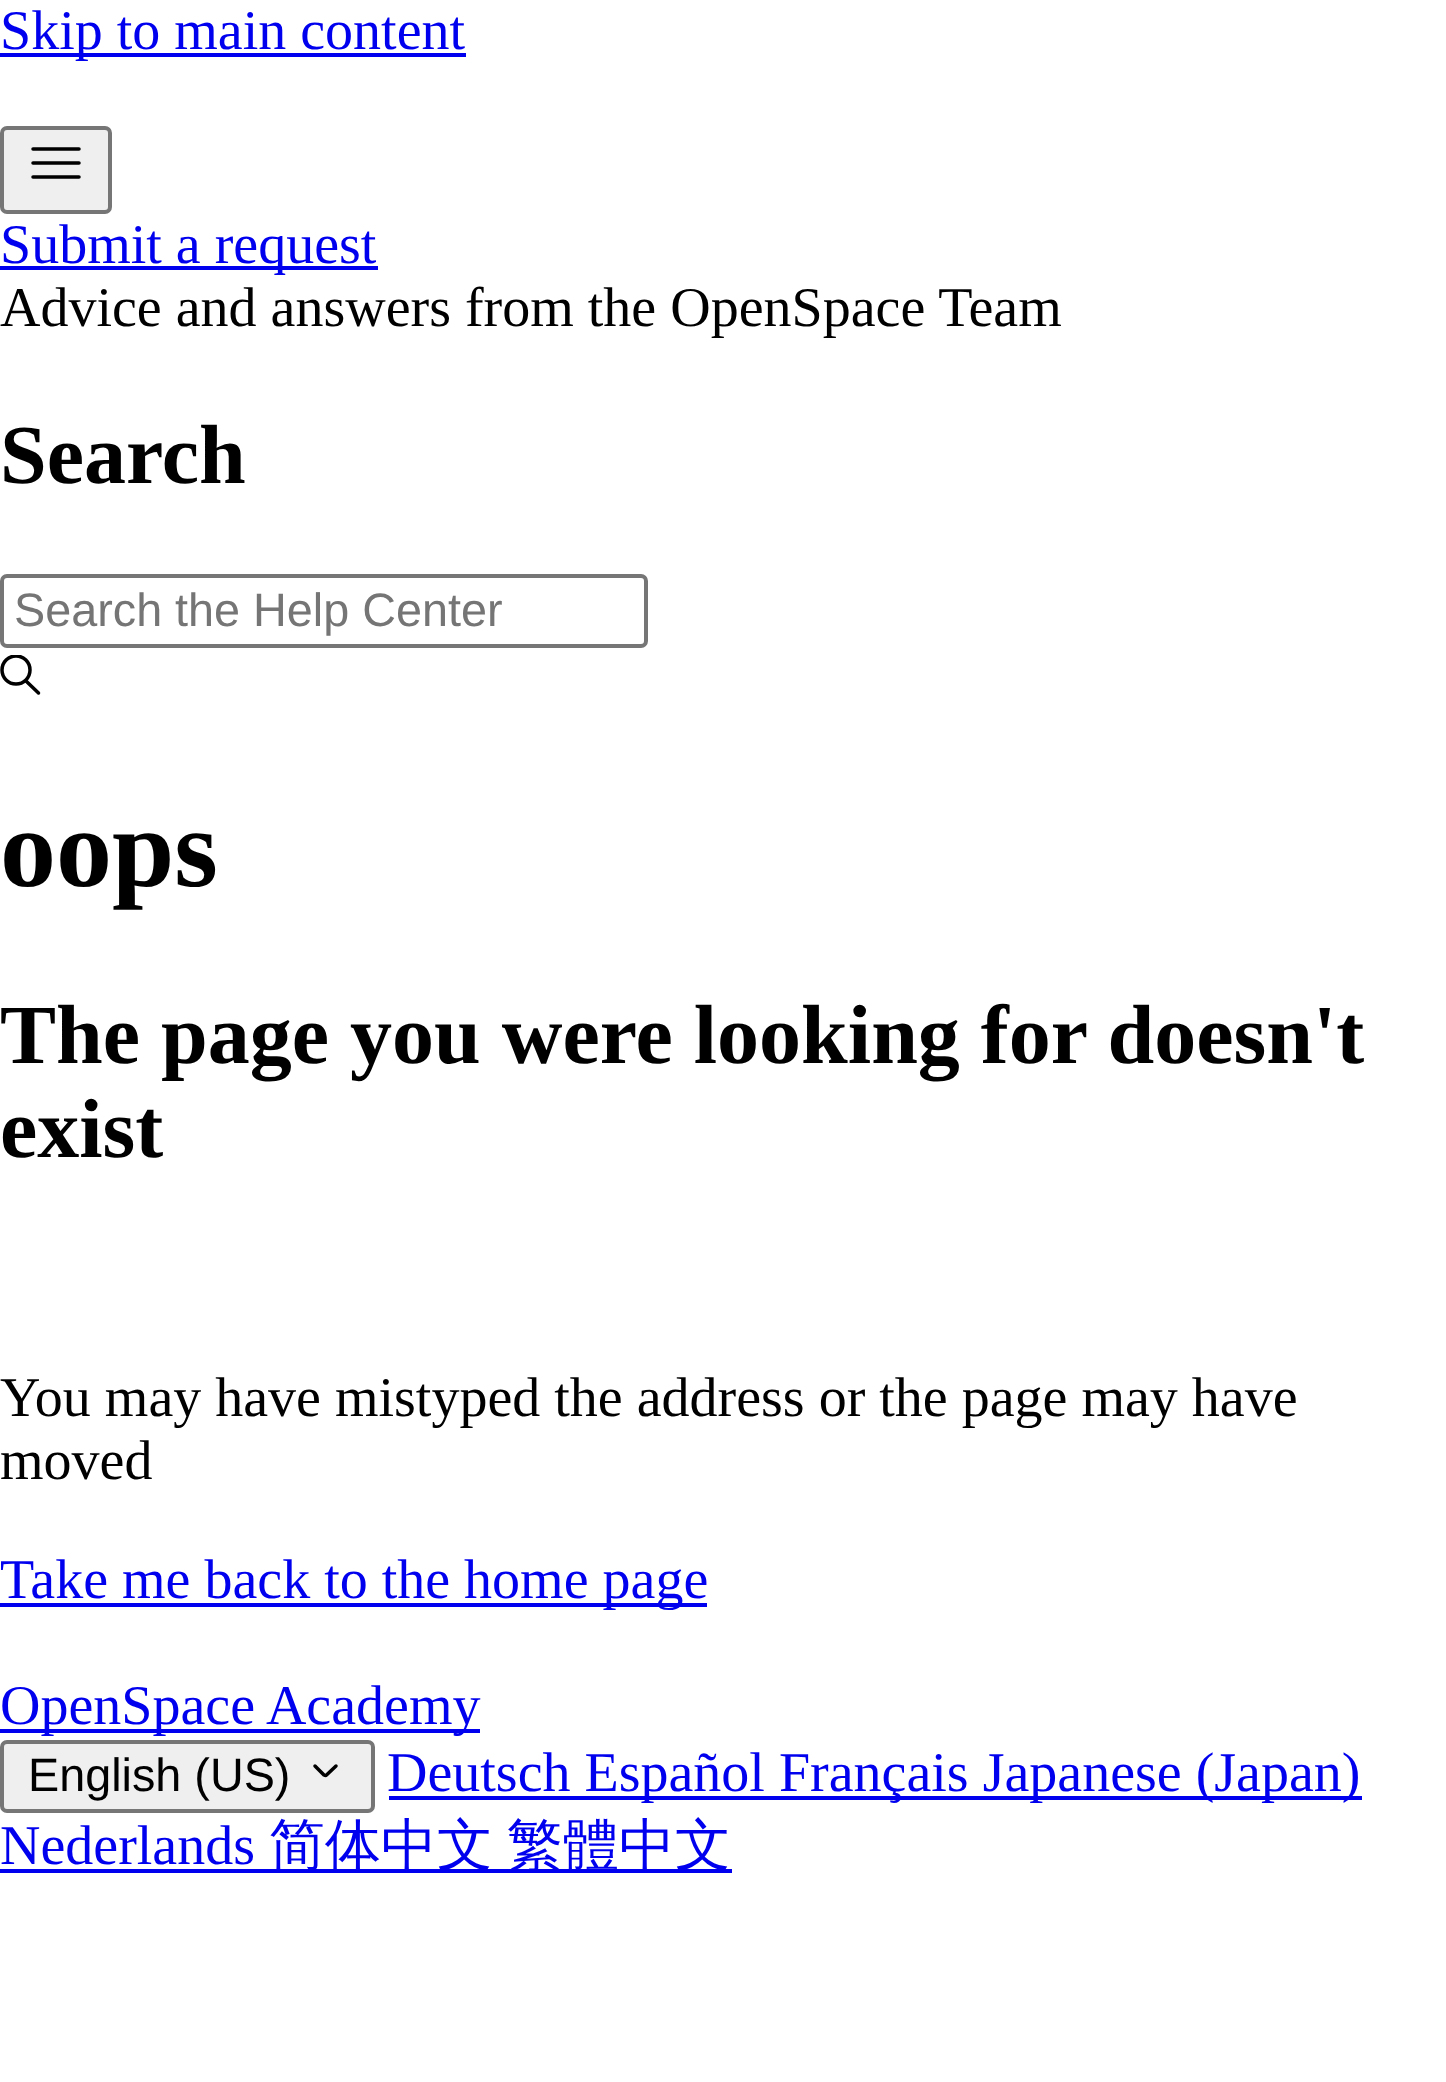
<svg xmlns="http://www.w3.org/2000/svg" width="1446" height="2082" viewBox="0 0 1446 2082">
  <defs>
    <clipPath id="clip1"><path d="M0 655h42v42H0z"/></clipPath>
  </defs>
  <rect width="100%" height="100%" fill="#fff"/>
  <path d="M0 53h466v4H0z" fill="#00e"/>
  <rect x="2" y="128" width="108" height="84" rx="5" fill="#efefef" stroke="#767676" stroke-width="4"/>
  <path d="M33 149H79M33 163H79M33 177H79" fill="none" stroke="#000" stroke-width="3.5" stroke-linecap="round"/>
  <path d="M0 266h378v4H0z" fill="#00e"/>
  <rect x="2" y="576" width="644" height="70" rx="5" fill="none" stroke="#767676" stroke-width="4"/>
  <g clip-path="url(#clip1)">
    <circle cx="16" cy="670" r="14" fill="none" stroke="#000" stroke-width="3.5"/>
  </g>
  <path d="M38.5 693L26 681" fill="none" stroke="#000" stroke-width="3.5" stroke-linecap="round"/>
  <path d="M0 1603h707v4H0z" fill="#00e"/>
  <path d="M0 1729h480v4H0z" fill="#00e"/>
  <rect x="2" y="1742" width="371" height="69" rx="5" fill="#efefef" stroke="#767676" stroke-width="4"/>
  <path d="M315 1766L324 1775C325 1775.5 326 1775.5 326.5 1775L336 1766" fill="none" stroke="#000" stroke-width="3.5" stroke-linecap="round"/>
  <path d="M389 1796h973v4H389z" fill="#00e"/>
  <path d="M0 1869h732v4H0z" fill="#00e"/>
  <g font-family="Liberation Serif" font-size="56" fill="#00e">
    <text x="0" y="49">Skip to main content</text>
    <text x="0" y="263">Submit a request</text>
  </g>
  <text x="0" y="326" font-family="Liberation Serif" font-size="56" fill="#000">Advice and answers from the OpenSpace Team</text>
  <text x="0" y="483" font-family="Liberation Serif" font-size="84" font-weight="bold" fill="#000">Search</text>
  <text x="14" y="626" font-family="Liberation Sans" font-size="46.75" fill="#757575">Search the Help Center</text>
  <text x="0" y="886" font-family="Liberation Serif" font-size="112" font-weight="bold" fill="#000">oops</text>
  <g font-family="Liberation Serif" font-size="84" font-weight="bold" fill="#000">
    <text x="0" y="1063">The page you were looking for doesn't</text>
    <text x="0" y="1157">exist</text>
  </g>
  <g font-family="Liberation Serif" font-size="56" fill="#000">
    <text x="0" y="1416">You may have mistyped the address or the page may have</text>
    <text x="0" y="1479">moved</text>
  </g>
  <g font-family="Liberation Serif" font-size="56" fill="#00e">
    <text x="0" y="1598">Take me back to the home page</text>
    <text x="0" y="1724">OpenSpace Academy</text>
  </g>
  <text x="28" y="1791" font-family="Liberation Sans" font-size="46.75" fill="#000">English (US)</text>
  <g font-family="Liberation Serif" font-size="56" fill="#00e">
    <text x="387" y="1791">Deutsch Español Français Japanese (Japan)</text>
    <text x="0" y="1864">Nederlands</text>
  </g>
  <g font-family="WenQuanYi Zen Hei" font-size="56" font-weight="500" fill="#00e">
    <text x="269" y="1864">简体中文</text>
    <text x="507" y="1864">繁體中文</text>
  </g>
</svg>
